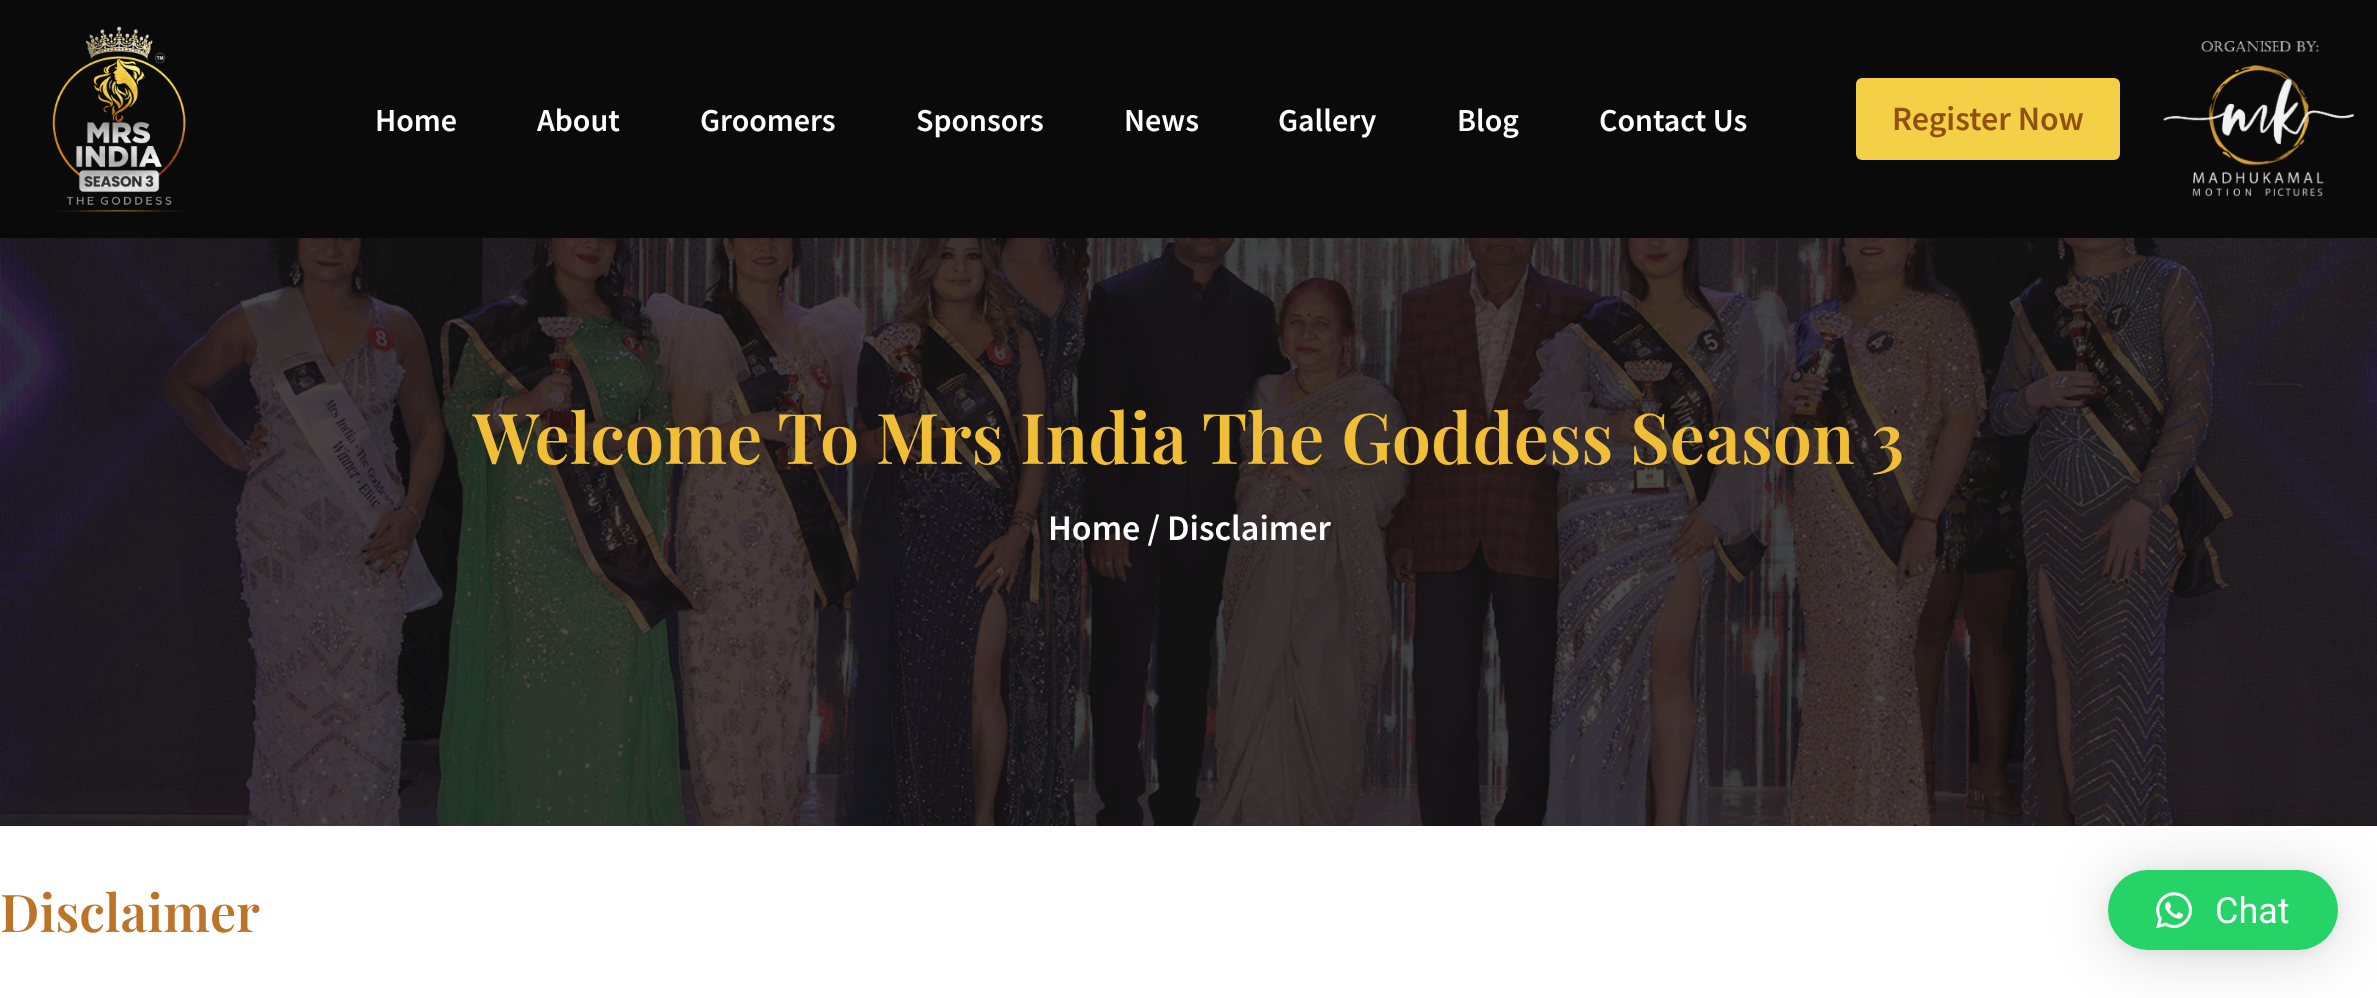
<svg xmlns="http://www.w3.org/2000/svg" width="2377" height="998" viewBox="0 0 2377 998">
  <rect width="100%" height="100%" fill="#fff"/>
  <path d="M0 0h2377v238H0z" fill="#0a0a0a"/>
  <image x="52" y="26" width="134" height="186" href="img/1.png"/>
  <rect x="1856" y="78" width="264" height="82" rx="6" fill="#f3d045"/>
  <image x="2163" y="41" width="192" height="156" href="img/2.png"/>
  <image x="0" y="238" width="2377" height="588" href="img/3.png"/>
  <rect x="2108" y="874" width="230" height="80" rx="40" fill="#00000029" filter="blur(32px)"/>
  <rect x="2108" y="872" width="230" height="80" rx="40" fill="#0000000f" filter="blur(6px)"/>
  <rect x="2108" y="870" width="230" height="80" rx="40" fill="#25d366"/>
  <image x="2156" y="892" width="36" height="37" href="img/4.png"/>
  <g font-family="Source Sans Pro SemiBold" font-size="32" font-weight="600" fill="#fff">
    <text x="375" y="131">Home</text>
    <text x="537" y="131">About</text>
    <text x="700" y="131">Groomers</text>
    <text x="916" y="131">Sponsors</text>
    <text x="1124" y="131">News</text>
    <text x="1278" y="131">Gallery</text>
    <text x="1457" y="131">Blog</text>
    <text x="1599" y="131">Contact Us</text>
  </g>
  <text x="1892" y="130" font-family="Source Sans Pro SemiBold" font-size="34" font-weight="600" fill="#92500e">Register Now</text>
  <text x="473" y="464" font-family="Playfair Display" font-size="70" font-weight="600" fill="#f1be37">Welcome To Mrs India The Goddess Season 3</text>
  <text x="1048" y="540" font-family="Source Sans Pro SemiBold" font-size="36" font-weight="600" fill="#fff">Home / Disclaimer</text>
  <text x="0" y="932" font-family="Playfair Display" font-size="52" font-weight="600" fill="#bc7429">Disclaimer</text>
  <text x="2215" y="923" font-family="Roboto" font-size="36" fill="#fff">Chat</text>
</svg>
